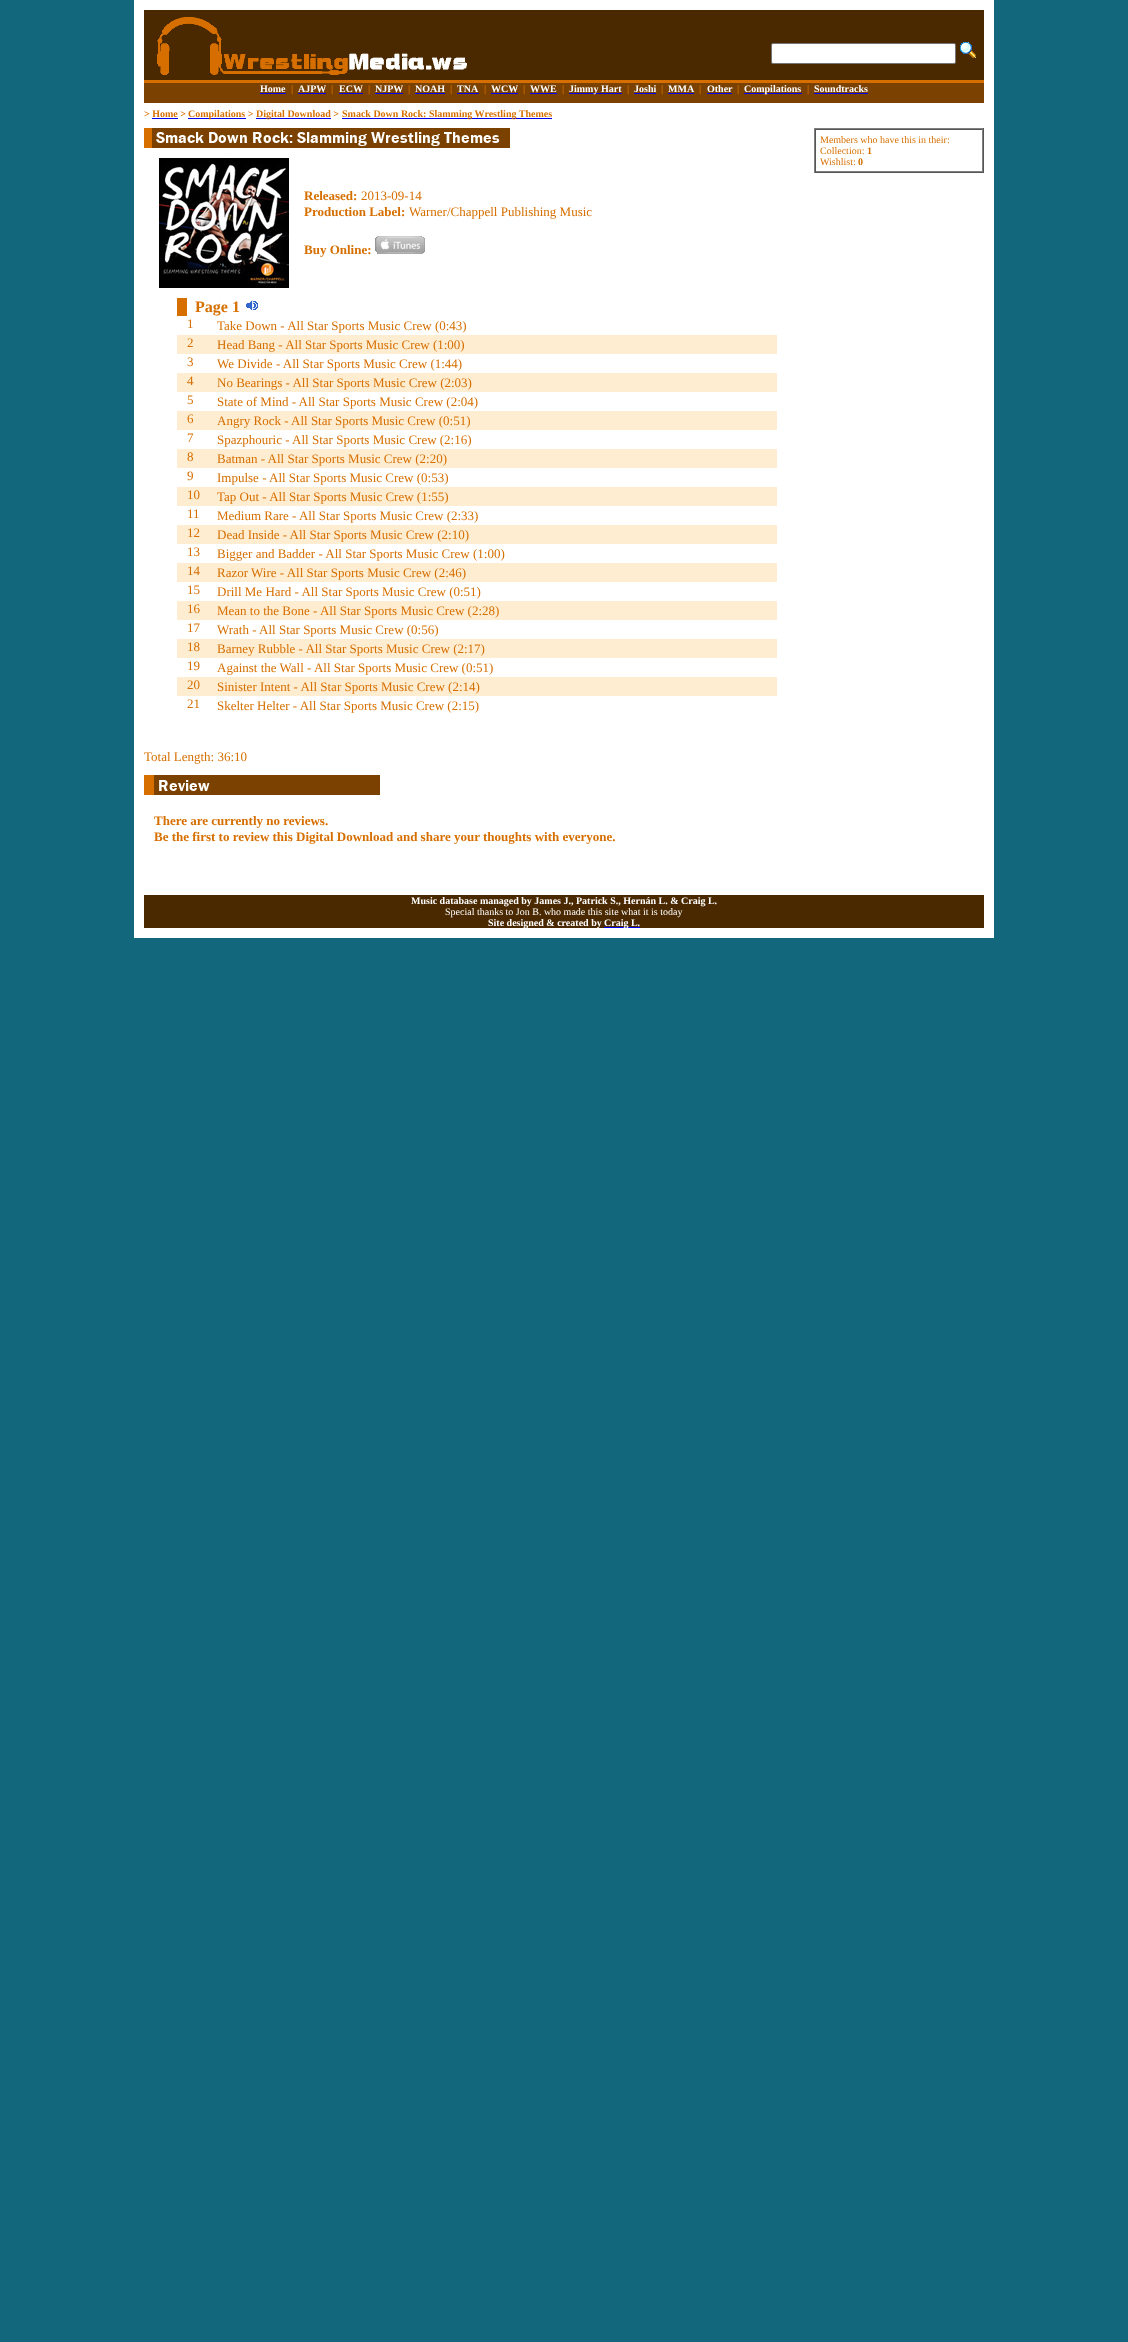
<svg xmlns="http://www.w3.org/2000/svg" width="1128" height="2342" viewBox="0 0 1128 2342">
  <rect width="100%" height="100%" fill="#12677d"/>
  <path d="M134 0h860v938H134z" fill="#fff"/>
  <path d="M144 10h840v70H144z" fill="#4b2900"/>
  <image x="157" y="17" width="310" height="58" href="img/1.png"/>
  <rect x="771.5" y="43.5" width="184" height="20" rx="1.5" fill="#fff" stroke="#767676"/>
  <image x="960" y="42" width="16" height="16" href="img/2.png"/>
  <path d="M144 80h840v3H144z" fill="#d66f00"/>
  <path d="M144 83h840v20H144z" fill="#7b4100"/>
  <path d="M260 93h26v1H260z" fill="#00e"/>
  <path d="M298 93h28v1H298z" fill="#00e"/>
  <path d="M339 93h24v1H339z" fill="#00e"/>
  <path d="M375 93h28v1H375z" fill="#00e"/>
  <path d="M415 93h30v1H415z" fill="#00e"/>
  <path d="M457 93h22v1H457z" fill="#00e"/>
  <path d="M491 93h27v1H491z" fill="#00e"/>
  <path d="M530 93h27v1H530z" fill="#00e"/>
  <path d="M569 93h53v1H569z" fill="#00e"/>
  <path d="M634 93h22v1H634z" fill="#00e"/>
  <path d="M668 93h26v1H668z" fill="#00e"/>
  <path d="M707 93h25v1H707z" fill="#00e"/>
  <path d="M744 93h58v1H744z" fill="#00e"/>
  <path d="M814 93h54v1H814z" fill="#00e"/>
  <path d="M152 118h26v1H152z" fill="#00e"/>
  <path d="M188 118h58v1H188z" fill="#00e"/>
  <path d="M256 118h75v1H256z" fill="#00e"/>
  <path d="M342 118h210v1H342z" fill="#00e"/>
  <path d="M144 128h8v20H144z" fill="#d66f00"/>
  <path d="M152 128h358v20H152z" fill="#7b4100"/>
  <image x="156" y="132" width="344" height="14" href="img/3.png"/>
  <path d="M814 128h170v1H814z" fill="#808080"/>
  <path d="M983 128h1v45H983z" fill="#555"/>
  <path d="M814 172h170v1H814z" fill="#555"/>
  <path d="M814 128h1v45H814z" fill="#808080"/>
  <path d="M815 129h168v1H815z" fill="#555"/>
  <path d="M982 129h1v43H982z" fill="#808080"/>
  <path d="M815 171h168v1H815z" fill="#808080"/>
  <path d="M815 129h1v43H815z" fill="#555"/>
  <image x="159" y="158" width="130" height="130" href="img/4.png"/>
  <image x="375" y="236" width="50" height="18" href="img/5.png"/>
  <path d="M177 298h10v18H177z" fill="#d66f00"/>
  <image x="246" y="300" width="12" height="10" href="img/6.png"/>
  <path d="M177 335h600v19H177z" fill="#ffedd2"/>
  <path d="M177 373h600v19H177z" fill="#ffedd2"/>
  <path d="M177 411h600v19H177z" fill="#ffedd2"/>
  <path d="M177 449h600v19H177z" fill="#ffedd2"/>
  <path d="M177 487h600v19H177z" fill="#ffedd2"/>
  <path d="M177 525h600v19H177z" fill="#ffedd2"/>
  <path d="M177 563h600v19H177z" fill="#ffedd2"/>
  <path d="M177 601h600v19H177z" fill="#ffedd2"/>
  <path d="M177 639h600v19H177z" fill="#ffedd2"/>
  <path d="M177 677h600v19H177z" fill="#ffedd2"/>
  <path d="M144 775h10v20H144z" fill="#d66f00"/>
  <path d="M154 775h226v20H154z" fill="#7b4100"/>
  <image x="159" y="780" width="51" height="11" href="img/7.png"/>
  <path d="M144 895h840v33H144z" fill="#4b2900"/>
  <path d="M604 927h36v1H604z" fill="#00e"/>
  <text x="260" y="92" font-family="Liberation Serif" font-size="10" font-weight="bold" fill="#fff">Home</text>
  <text x="291" y="92" font-family="Liberation Serif" font-size="10" font-weight="bold" fill="#d66f00">|</text>
  <text x="298" y="92" font-family="Liberation Serif" font-size="10" font-weight="bold" fill="#fff">AJPW</text>
  <text x="331" y="92" font-family="Liberation Serif" font-size="10" font-weight="bold" fill="#d66f00">|</text>
  <text x="339" y="92" font-family="Liberation Serif" font-size="10" font-weight="bold" fill="#fff">ECW</text>
  <text x="368" y="92" font-family="Liberation Serif" font-size="10" font-weight="bold" fill="#d66f00">|</text>
  <text x="375" y="92" font-family="Liberation Serif" font-size="10" font-weight="bold" fill="#fff">NJPW</text>
  <text x="408" y="92" font-family="Liberation Serif" font-size="10" font-weight="bold" fill="#d66f00">|</text>
  <text x="415" y="92" font-family="Liberation Serif" font-size="10" font-weight="bold" fill="#fff">NOAH</text>
  <text x="450" y="92" font-family="Liberation Serif" font-size="10" font-weight="bold" fill="#d66f00">|</text>
  <text x="457" y="92" font-family="Liberation Serif" font-size="10" font-weight="bold" fill="#fff">TNA</text>
  <text x="484" y="92" font-family="Liberation Serif" font-size="10" font-weight="bold" fill="#d66f00">|</text>
  <text x="491" y="92" font-family="Liberation Serif" font-size="10" font-weight="bold" fill="#fff">WCW</text>
  <text x="523" y="92" font-family="Liberation Serif" font-size="10" font-weight="bold" fill="#d66f00">|</text>
  <text x="530" y="92" font-family="Liberation Serif" font-size="10" font-weight="bold" fill="#fff">WWE</text>
  <text x="562" y="92" font-family="Liberation Serif" font-size="10" font-weight="bold" fill="#d66f00">|</text>
  <text x="569" y="92" font-family="Liberation Serif" font-size="10" font-weight="bold" fill="#fff">Jimmy Hart</text>
  <text x="627" y="92" font-family="Liberation Serif" font-size="10" font-weight="bold" fill="#d66f00">|</text>
  <text x="634" y="92" font-family="Liberation Serif" font-size="10" font-weight="bold" fill="#fff">Joshi</text>
  <text x="661" y="92" font-family="Liberation Serif" font-size="10" font-weight="bold" fill="#d66f00">|</text>
  <text x="668" y="92" font-family="Liberation Serif" font-size="10" font-weight="bold" fill="#fff">MMA</text>
  <text x="699" y="92" font-family="Liberation Serif" font-size="10" font-weight="bold" fill="#d66f00">|</text>
  <text x="707" y="92" font-family="Liberation Serif" font-size="10" font-weight="bold" fill="#fff">Other</text>
  <text x="737" y="92" font-family="Liberation Serif" font-size="10" font-weight="bold" fill="#d66f00">|</text>
  <text x="744" y="92" font-family="Liberation Serif" font-size="10" font-weight="bold" fill="#fff">Compilations</text>
  <text x="807" y="92" font-family="Liberation Serif" font-size="10" font-weight="bold" fill="#d66f00">|</text>
  <text x="814" y="92" font-family="Liberation Serif" font-size="10" font-weight="bold" fill="#fff">Soundtracks</text>
  <g font-family="Liberation Serif" font-size="10" font-weight="bold" fill="#d66f00">
    <text x="144" y="117">&gt; Home &gt;</text>
    <text x="188" y="117">Compilations &gt;</text>
    <text x="256" y="117">Digital Download &gt;</text>
    <text x="342" y="117">Smack Down Rock: Slamming Wrestling Themes</text>
  </g>
  <g font-family="Liberation Serif" font-size="10" fill="#d66f00">
    <text x="820" y="143">Members who have this in their:</text>
    <text x="820" y="154">Collection:</text>
  </g>
  <text x="867" y="154" font-family="Liberation Serif" font-size="10" font-weight="bold" fill="#d66f00">1</text>
  <text x="820" y="165" font-family="Liberation Serif" font-size="10" fill="#d66f00">Wishlist:</text>
  <text x="858" y="165" font-family="Liberation Serif" font-size="10" font-weight="bold" fill="#d66f00">0</text>
  <text x="304" y="200" font-family="Liberation Serif" font-size="13" font-weight="bold" fill="#d66f00">Released:</text>
  <text x="361" y="200" font-family="Liberation Serif" font-size="13" fill="#d66f00">2013-09-14</text>
  <text x="304" y="216" font-family="Liberation Serif" font-size="13" font-weight="bold" fill="#d66f00">Production Label:</text>
  <text x="409" y="216" font-family="Liberation Serif" font-size="13" fill="#d66f00">Warner/Chappell Publishing Music</text>
  <text x="304" y="254" font-family="Liberation Serif" font-size="13" font-weight="bold" fill="#d66f00">Buy Online:</text>
  <text x="195" y="312" font-family="Liberation Serif" font-size="16" font-weight="bold" fill="#d66f00">Page 1</text>
  <g font-family="Liberation Serif" font-size="13" fill="#d66f00">
    <text x="187" y="328">1</text>
    <text x="217" y="330">Take Down - All Star Sports Music Crew (0:43)</text>
    <text x="187" y="347">2</text>
    <text x="217" y="349">Head Bang - All Star Sports Music Crew (1:00)</text>
    <text x="187" y="366">3</text>
    <text x="217" y="368">We Divide - All Star Sports Music Crew (1:44)</text>
    <text x="187" y="385">4</text>
    <text x="217" y="387">No Bearings - All Star Sports Music Crew (2:03)</text>
    <text x="187" y="404">5</text>
    <text x="217" y="406">State of Mind - All Star Sports Music Crew (2:04)</text>
    <text x="187" y="423">6</text>
    <text x="217" y="425">Angry Rock - All Star Sports Music Crew (0:51)</text>
    <text x="187" y="442">7</text>
    <text x="217" y="444">Spazphouric - All Star Sports Music Crew (2:16)</text>
    <text x="187" y="461">8</text>
    <text x="217" y="463">Batman - All Star Sports Music Crew (2:20)</text>
    <text x="187" y="480">9</text>
    <text x="217" y="482">Impulse - All Star Sports Music Crew (0:53)</text>
    <text x="187" y="499">10</text>
    <text x="217" y="501">Tap Out - All Star Sports Music Crew (1:55)</text>
    <text x="187" y="518">11</text>
    <text x="217" y="520">Medium Rare - All Star Sports Music Crew (2:33)</text>
    <text x="187" y="537">12</text>
    <text x="217" y="539">Dead Inside - All Star Sports Music Crew (2:10)</text>
    <text x="187" y="556">13</text>
    <text x="217" y="558">Bigger and Badder - All Star Sports Music Crew (1:00)</text>
    <text x="187" y="575">14</text>
    <text x="217" y="577">Razor Wire - All Star Sports Music Crew (2:46)</text>
    <text x="187" y="594">15</text>
    <text x="217" y="596">Drill Me Hard - All Star Sports Music Crew (0:51)</text>
    <text x="187" y="613">16</text>
    <text x="217" y="615">Mean to the Bone - All Star Sports Music Crew (2:28)</text>
    <text x="187" y="632">17</text>
    <text x="217" y="634">Wrath - All Star Sports Music Crew (0:56)</text>
    <text x="187" y="651">18</text>
    <text x="217" y="653">Barney Rubble - All Star Sports Music Crew (2:17)</text>
    <text x="187" y="670">19</text>
    <text x="217" y="672">Against the Wall - All Star Sports Music Crew (0:51)</text>
    <text x="187" y="689">20</text>
    <text x="217" y="691">Sinister Intent - All Star Sports Music Crew (2:14)</text>
    <text x="187" y="708">21</text>
    <text x="217" y="710">Skelter Helter - All Star Sports Music Crew (2:15)</text>
    <text x="144" y="761">Total Length: 36:10</text>
  </g>
  <g font-family="Liberation Serif" font-size="13" font-weight="bold" fill="#d66f00">
    <text x="154" y="825">There are currently no reviews.</text>
    <text x="154" y="841">Be the first to review this Digital Download and share your thoughts with everyone.</text>
  </g>
  <text x="411" y="904" font-family="Liberation Serif" font-size="10" font-weight="bold" fill="#fff">Music database managed by James J., Patrick S., Hernán L. &amp; Craig L.</text>
  <text x="445" y="915" font-family="Liberation Serif" font-size="10" fill="#fff">Special thanks to Jon B. who made this site what it is today</text>
  <g font-family="Liberation Serif" font-size="10" font-weight="bold" fill="#fff">
    <text x="488" y="926">Site designed &amp; created by</text>
    <text x="604" y="926">Craig L.</text>
  </g>
</svg>
